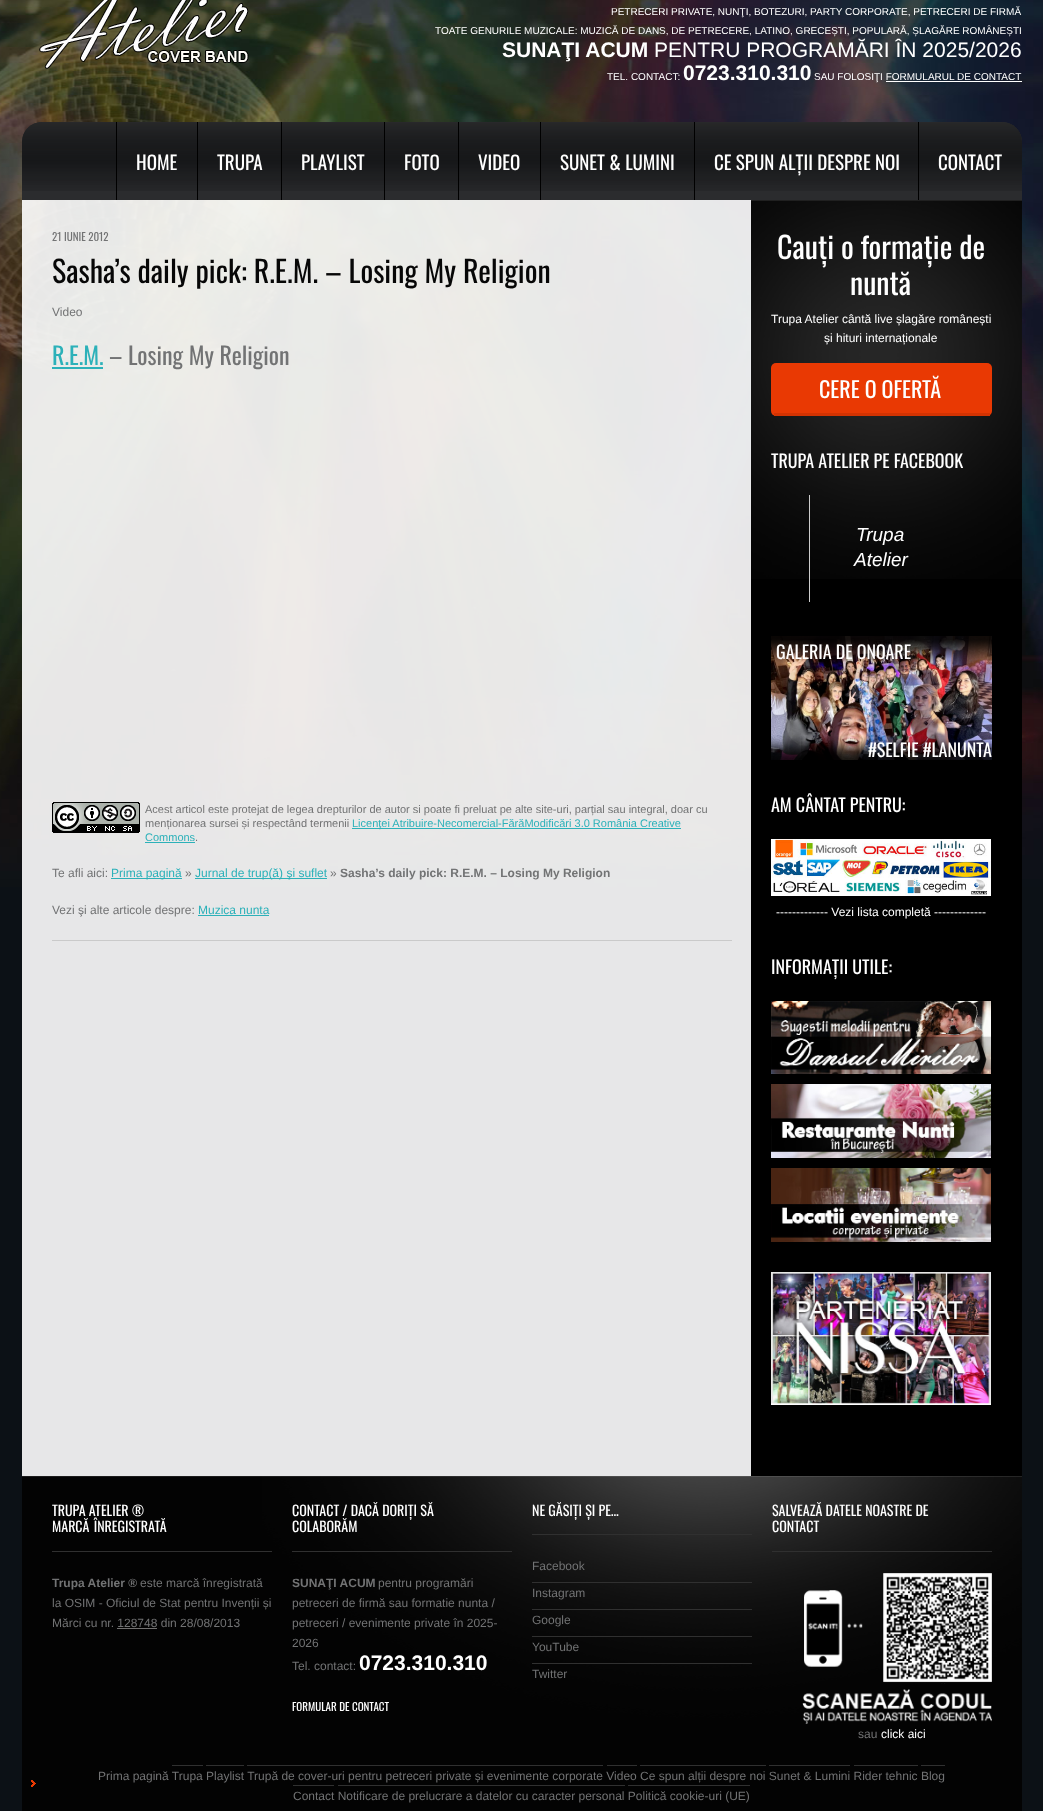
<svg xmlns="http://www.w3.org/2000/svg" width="1043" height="1811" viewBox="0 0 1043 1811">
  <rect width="100%" height="100%" fill="#0c1116"/>
  <image x="0" y="0" width="1043" height="887" href="img/1.png"/>
  <image x="39" y="0" width="210" height="69" href="img/2.png"/>
  <path d="M886 81h136v1H886z" fill="#fff"/>
  <path d="M42 122H1002C1013 122 1022 131 1022 142V200H22V142C22 131 31 122 42 122Z" fill="#2b2c2e"/>
  <image x="22" y="122" width="1000" height="69" href="img/3.png"/>
  <path d="M116 122h1v78H116z" fill="#000"/>
  <path d="M197 122h1v78H197z" fill="#000"/>
  <path d="M281 122h1v78H281z" fill="#000"/>
  <path d="M384 122h1v78H384z" fill="#000"/>
  <path d="M458 122h1v78H458z" fill="#000"/>
  <path d="M540 122h1v78H540z" fill="#000"/>
  <path d="M694 122h1v78H694z" fill="#000"/>
  <path d="M918 122h1v78H918z" fill="#000"/>
  <path d="M22 200h729v1276H22z" fill="#ffffffe6"/>
  <path d="M52 940h680v1H52z" fill="#cacaca"/>
  <path d="M52 367h51v2H52z" fill="#2cb1b9"/>
  <image x="52" y="802" width="88" height="31" href="img/4.png"/>
  <path d="M352 828h329v1H352z" fill="#2cb1b9"/>
  <path d="M145 842h50v1H145z" fill="#2cb1b9"/>
  <path d="M111 878h71v1H111z" fill="#2cb1b9"/>
  <path d="M195 878h132v1H195z" fill="#2cb1b9"/>
  <path d="M198 915h71v1H198z" fill="#2cb1b9"/>
  <path d="M751 201h271v1275H751z" fill="#000"/>
  <image x="751" y="201" width="271" height="378" href="img/5.png"/>
  <path d="M751 200h271v1H751z" fill="#202020"/>
  <rect x="771" y="363" width="221" height="53" rx="5" fill="#e93903"/>
  <path d="M774 413h216v3H774z" fill="#d33302"/>
  <path d="M809 495h1v107H809z" fill="#ccc"/>
  <image x="771" y="636" width="221" height="124" href="img/6.png"/>
  <image x="771" y="636" width="221" height="28" href="img/7.png"/>
  <image x="771" y="736" width="221" height="24" href="img/8.png"/>
  <image x="771" y="839" width="220" height="57" href="img/9.png"/>
  <image x="771" y="1001" width="220" height="73" href="img/10.png"/>
  <image x="771" y="1084" width="220" height="74" href="img/11.png"/>
  <image x="771" y="1168" width="220" height="74" href="img/12.png"/>
  <image x="771" y="1272" width="220" height="133" href="img/13.png"/>
  <path d="M22 1476h1000v335H22z" fill="#030303"/>
  <image x="31" y="1476" width="991" height="311" href="img/14.png"/>
  <path d="M22 1476h1000v1H22z" fill="#ffffff1a"/>
  <path d="M52 1551h220v1H52z" fill="#303030"/>
  <path d="M117 1628h40v1H117z" fill="#727171"/>
  <path d="M292 1551h220v1H292z" fill="#303030"/>
  <path d="M532 1534h220v1H532z" fill="#303030"/>
  <path d="M532 1582h220v1H532z" fill="#303030"/>
  <path d="M532 1609h220v1H532z" fill="#303030"/>
  <path d="M532 1636h220v1H532z" fill="#303030"/>
  <path d="M532 1663h220v1H532z" fill="#303030"/>
  <path d="M772 1551h220v1H772z" fill="#303030"/>
  <image x="802" y="1573" width="190" height="151" href="img/15.png"/>
  <path d="M172 1765h31v1H172z" fill="#303030"/>
  <path d="M206 1765h38v1H206z" fill="#303030"/>
  <path d="M247 1765h356v1H247z" fill="#303030"/>
  <path d="M607 1765h30v1H607z" fill="#303030"/>
  <path d="M640 1765h126v1H640z" fill="#303030"/>
  <path d="M769 1765h81v1H769z" fill="#303030"/>
  <path d="M854 1765h64v1H854z" fill="#303030"/>
  <path d="M921 1765h24v1H921z" fill="#303030"/>
  <path d="M338 1785h287v1H338z" fill="#303030"/>
  <path d="M628 1785h122v1H628z" fill="#303030"/>
  <path d="M293 1785h41v1H293z" fill="#303030"/>
  <g font-family="Liberation Sans" font-size="10" fill="#fff">
    <text x="611" y="15">PETRECERI PRIVATE, NUNŢI, BOTEZURI, PARTY CORPORATE, PETRECERI DE FIRMĂ</text>
    <text x="435" y="34">TOATE GENURILE MUZICALE: MUZICĂ DE DANS, DE PETRECERE, LATINO, GRECEȘTI, POPULARĂ, ȘLAGĂRE ROMÂNEȘTI</text>
  </g>
  <text x="502" y="57" font-family="Liberation Sans" font-size="21" font-weight="bold" fill="#fff">SUNAŢI ACUM</text>
  <text x="654" y="57" font-family="Liberation Sans" font-size="21" fill="#fff">PENTRU PROGRAMĂRI ÎN 2025/2026</text>
  <text x="607" y="80" font-family="Liberation Sans" font-size="10" fill="#fff">TEL. CONTACT:</text>
  <text x="683" y="80" font-family="Liberation Sans" font-size="21" font-weight="bold" fill="#fff">0723.310.310</text>
  <text x="814" y="80" font-family="Liberation Sans" font-size="10" fill="#fff">SAU FOLOSIŢI FORMULARUL DE CONTACT</text>
  <g font-family="Oswald" font-size="19" fill="#fff">
    <text x="136" y="170">HOME</text>
    <text x="217" y="170">TRUPA</text>
    <text x="301" y="170">PLAYLIST</text>
    <text x="404" y="170">FOTO</text>
    <text x="478" y="170">VIDEO</text>
    <text x="560" y="170">SUNET &amp; LUMINI</text>
    <text x="714" y="170">CE SPUN ALȚII DESPRE NOI</text>
    <text x="938" y="170">CONTACT</text>
  </g>
  <text x="52" y="241" font-family="Oswald" font-size="11" fill="#727374">21 IUNIE 2012</text>
  <text x="52" y="283" font-family="Oswald" font-size="30" fill="#070707">Sasha’s daily pick: R.E.M. – Losing My Religion</text>
  <text x="52" y="316" font-family="Liberation Sans" font-size="12" fill="#727374">Video</text>
  <text x="52" y="365" font-family="Oswald" font-size="24" fill="#2cb1b9">R.E.M.</text>
  <text x="109" y="365" font-family="Oswald" font-size="24" fill="#727374">– Losing My Religion</text>
  <g font-family="Liberation Sans" font-size="11" fill="#727374">
    <text x="145" y="813">Acest articol este protejat de legea drepturilor de autor si poate fi preluat pe alte site-uri, parțial sau integral, doar cu</text>
    <text x="145" y="827">menționarea sursei și respectând termenii</text>
  </g>
  <g font-family="Liberation Sans" font-size="11" fill="#2cb1b9">
    <text x="352" y="827">Licenţei Atribuire-Necomercial-FărăModificări 3.0 România Creative</text>
    <text x="145" y="841">Commons</text>
  </g>
  <text x="195" y="841" font-family="Liberation Sans" font-size="11" fill="#727374">.</text>
  <text x="52" y="877" font-family="Liberation Sans" font-size="12" fill="#727374">Te afli aici:</text>
  <text x="111" y="877" font-family="Liberation Sans" font-size="12" fill="#2cb1b9">Prima pagină</text>
  <text x="185" y="877" font-family="Liberation Sans" font-size="12" fill="#727374">»</text>
  <text x="195" y="877" font-family="Liberation Sans" font-size="12" fill="#2cb1b9">Jurnal de trup(ă) şi suflet</text>
  <text x="330" y="877" font-family="Liberation Sans" font-size="12" fill="#727374">»</text>
  <text x="340" y="877" font-family="Liberation Sans" font-size="12" font-weight="bold" fill="#727374">Sasha’s daily pick: R.E.M. – Losing My Religion</text>
  <text x="52" y="914" font-family="Liberation Sans" font-size="12" fill="#727374">Vezi şi alte articole despre:</text>
  <text x="198" y="914" font-family="Liberation Sans" font-size="12" fill="#2cb1b9">Muzica nunta</text>
  <g font-family="Oswald" font-size="30" fill="#fff">
    <text x="777" y="259">Cauți o formație de</text>
    <text x="850" y="295">nuntă</text>
  </g>
  <g font-family="Liberation Sans" font-size="12" fill="#fff">
    <text x="771" y="323">Trupa Atelier cântă live șlagăre românești</text>
    <text x="824" y="342">și hituri internaționale</text>
  </g>
  <text x="819" y="398" font-family="Oswald" font-size="22" fill="#fff">CERE O OFERTĂ</text>
  <text x="771" y="468" font-family="Oswald" font-size="18" fill="#fff">TRUPA ATELIER PE FACEBOOK</text>
  <g font-family="Liberation Sans" font-size="19" font-style="italic" fill="#fff">
    <text x="856" y="541">Trupa</text>
    <text x="854" y="566">Atelier</text>
  </g>
  <g font-family="Oswald" font-size="18" fill="#fff">
    <text x="776" y="659">GALERIA DE ONOARE</text>
    <text x="868" y="757">#SELFIE #LANUNTA</text>
    <text x="771" y="812">AM CÂNTAT PENTRU:</text>
  </g>
  <text x="776" y="916" font-family="Liberation Sans" font-size="12" fill="#fff">------------- Vezi lista completă -------------</text>
  <text x="771" y="974" font-family="Oswald" font-size="18" fill="#fff">INFORMAȚII UTILE:</text>
  <g font-family="Oswald" font-size="14" fill="#fff">
    <text x="52" y="1516">TRUPA ATELIER ®</text>
    <text x="52" y="1532" word-spacing="1">MARCĂ ÎNREGISTRATĂ</text>
  </g>
  <text x="52" y="1587" font-family="Liberation Sans" font-size="12" font-weight="bold" fill="#727374">Trupa Atelier ®</text>
  <g font-family="Liberation Sans" font-size="12" fill="#727374">
    <text x="140" y="1587">este marcă înregistrată</text>
    <text x="52" y="1607">la OSIM - Oficiul de Stat pentru Invenții și</text>
    <text x="52" y="1627">Mărci cu nr. 128748 din 28/08/2013</text>
  </g>
  <g font-family="Oswald" font-size="14" fill="#fff">
    <text x="292" y="1516">CONTACT / DACĂ DORIȚI SĂ</text>
    <text x="292" y="1532">COLABORĂM</text>
  </g>
  <text x="292" y="1587" font-family="Liberation Sans" font-size="12" font-weight="bold" fill="#727374">SUNAŢI ACUM</text>
  <g font-family="Liberation Sans" font-size="12" fill="#727374">
    <text x="378" y="1587">pentru programări</text>
    <text x="292" y="1607">petreceri de firmă sau formatie nunta /</text>
    <text x="292" y="1627">petreceri / evenimente private în 2025-</text>
    <text x="292" y="1647">2026</text>
    <text x="292" y="1670">Tel. contact:</text>
  </g>
  <text x="359" y="1670" font-family="Liberation Sans" font-size="21" font-weight="bold" fill="#fff">0723.310.310</text>
  <text x="292" y="1711" font-family="Oswald" font-size="11" fill="#fff">FORMULAR DE CONTACT</text>
  <text x="532" y="1516" font-family="Oswald" font-size="14" fill="#fff">NE GĂSIȚI ȘI PE…</text>
  <g font-family="Liberation Sans" font-size="12" fill="#727374">
    <text x="532" y="1570">Facebook</text>
    <text x="532" y="1597">Instagram</text>
    <text x="532" y="1624">Google</text>
    <text x="532" y="1651">YouTube</text>
    <text x="532" y="1678">Twitter</text>
  </g>
  <g font-family="Oswald" font-size="14" fill="#fff">
    <text x="772" y="1516">SALVEAZĂ DATELE NOASTRE DE</text>
    <text x="772" y="1532">CONTACT</text>
  </g>
  <text x="858" y="1738" font-family="Liberation Sans" font-size="12" fill="#727374">sau</text>
  <text x="881" y="1738" font-family="Liberation Sans" font-size="12" fill="#fff">click aici</text>
  <g font-family="Liberation Sans" font-size="12" fill="#727374">
    <text x="98" y="1780">Prima pagină Trupa Playlist Trupă de cover-uri pentru petreceri private și evenimente corporate Video Ce spun alții despre noi Sunet &amp; Lumini Rider tehnic Blog</text>
    <text x="293" y="1800">Contact Notificare de prelucrare a datelor cu caracter personal Politică cookie-uri (UE)</text>
  </g>
</svg>
